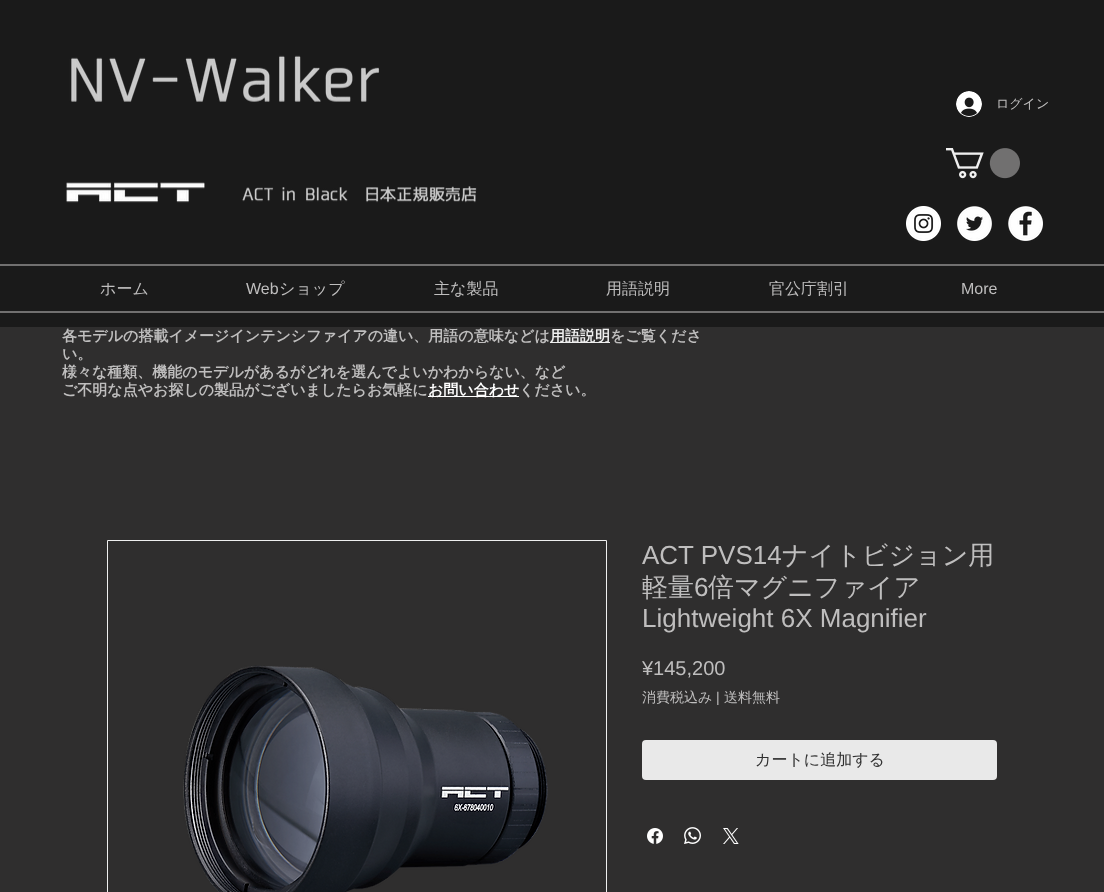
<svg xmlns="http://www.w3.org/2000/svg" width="1104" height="892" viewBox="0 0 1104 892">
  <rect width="100%" height="100%" fill="#1a1a1a"/>
  <image x="66" y="55" width="411" height="148" href="img/1.png"/>
  <image x="956" y="91" width="26" height="26" href="img/2.png"/>
  <image x="946" y="148" width="74" height="31" href="img/3.png"/>
  <image x="906" y="206" width="35" height="35" href="img/4.png"/>
  <image x="957" y="206" width="35" height="35" href="img/5.png"/>
  <image x="1008" y="206" width="35" height="35" href="img/6.png"/>
  <path d="M0 264h1104v2H0z" fill="#717070"/>
  <path d="M0 311h1104v2H0z" fill="#717070"/>
  <path d="M0 327h1104v565H0z" fill="#2f2e2e"/>
  <path d="M550 342h60v1H550z" fill="#efefef"/>
  <path d="M428 396h91v1H428z" fill="#fff"/>
  <path d="M107.5 540.5h499v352H107.5z" fill="none" stroke="#efefef"/>
  <image x="183" y="665" width="365" height="227" href="img/7.png"/>
  <rect x="642" y="740" width="355" height="40" rx="4" fill="#e9e9e9"/>
  <image x="647" y="828" width="16" height="16" href="img/8.png"/>
  <image x="684" y="827" width="17" height="17" href="img/9.png"/>
  <image x="723" y="828" width="16" height="16" href="img/10.png"/>
  <text x="996" y="108" font-family="WenQuanYi Zen Hei" font-size="13" font-weight="500" fill="#bfbebe">ログイン</text>
  <text x="100" y="294" font-family="WenQuanYi Zen Hei" font-size="16" font-weight="500" fill="#bfbebe">ホーム</text>
  <text x="246" y="294" font-family="Liberation Sans" font-size="16" fill="#bfbebe">Web</text>
  <g font-family="WenQuanYi Zen Hei" font-size="16" font-weight="500" fill="#bfbebe">
    <text x="279" y="294">ショップ</text>
    <text x="434" y="294">主な製品</text>
    <text x="606" y="294">用語説明</text>
    <text x="769" y="294">官公庁割引</text>
  </g>
  <text x="961" y="294" font-family="Liberation Sans" font-size="16" fill="#bfbebe">More</text>
  <text x="62" y="341" font-family="WenQuanYi Zen Hei" font-size="15" font-weight="bold" fill="#bfbebe">各モデルの搭載イメージインテンシファイアの違い、用語の意味などは</text>
  <text x="550" y="341" font-family="WenQuanYi Zen Hei" font-size="15" font-weight="bold" fill="#efefef">用語説明</text>
  <g font-family="WenQuanYi Zen Hei" font-size="15" font-weight="bold" fill="#bfbebe">
    <text x="610" y="341">をご覧くださ</text>
    <text x="62" y="359">い。</text>
    <text x="62" y="377">様々な種類、機能のモデルがあるがどれを選んでよいかわからない、など</text>
    <text x="62" y="395">ご不明な点やお探しの製品がございましたらお気軽に</text>
  </g>
  <text x="428" y="395" font-family="WenQuanYi Zen Hei" font-size="15" font-weight="bold" fill="#fff">お問い合わせ</text>
  <text x="519" y="395" font-family="WenQuanYi Zen Hei" font-size="15" font-weight="bold" fill="#bfbebe">ください。</text>
  <text x="642" y="564" font-family="Liberation Sans" font-size="26" fill="#bfbebe">ACT PVS14</text>
  <g font-family="WenQuanYi Zen Hei" font-size="26" font-weight="500" fill="#bfbebe">
    <text x="782" y="564">ナイトビジョン用</text>
    <text x="642" y="596">軽量</text>
  </g>
  <text x="694" y="596" font-family="Liberation Sans" font-size="26" fill="#bfbebe">6</text>
  <text x="708" y="596" font-family="WenQuanYi Zen Hei" font-size="26" font-weight="500" fill="#bfbebe">倍マグニファイア</text>
  <text x="642" y="627" font-family="Liberation Sans" font-size="26" fill="#bfbebe">Lightweight 6X Magnifier</text>
  <text x="642" y="675" font-family="Liberation Sans" font-size="20" fill="#bfbebe">¥145,200</text>
  <text x="642" y="702" font-family="WenQuanYi Zen Hei" font-size="14" font-weight="500" fill="#bfbebe">消費税込み</text>
  <text x="716" y="702" font-family="Liberation Sans" font-size="14" fill="#bfbebe">|</text>
  <text x="724" y="702" font-family="WenQuanYi Zen Hei" font-size="14" font-weight="500" fill="#bfbebe">送料無料</text>
  <text x="755" y="765" font-family="WenQuanYi Zen Hei" font-size="16" font-weight="500" fill="#303030">カートに追加する</text>
</svg>
